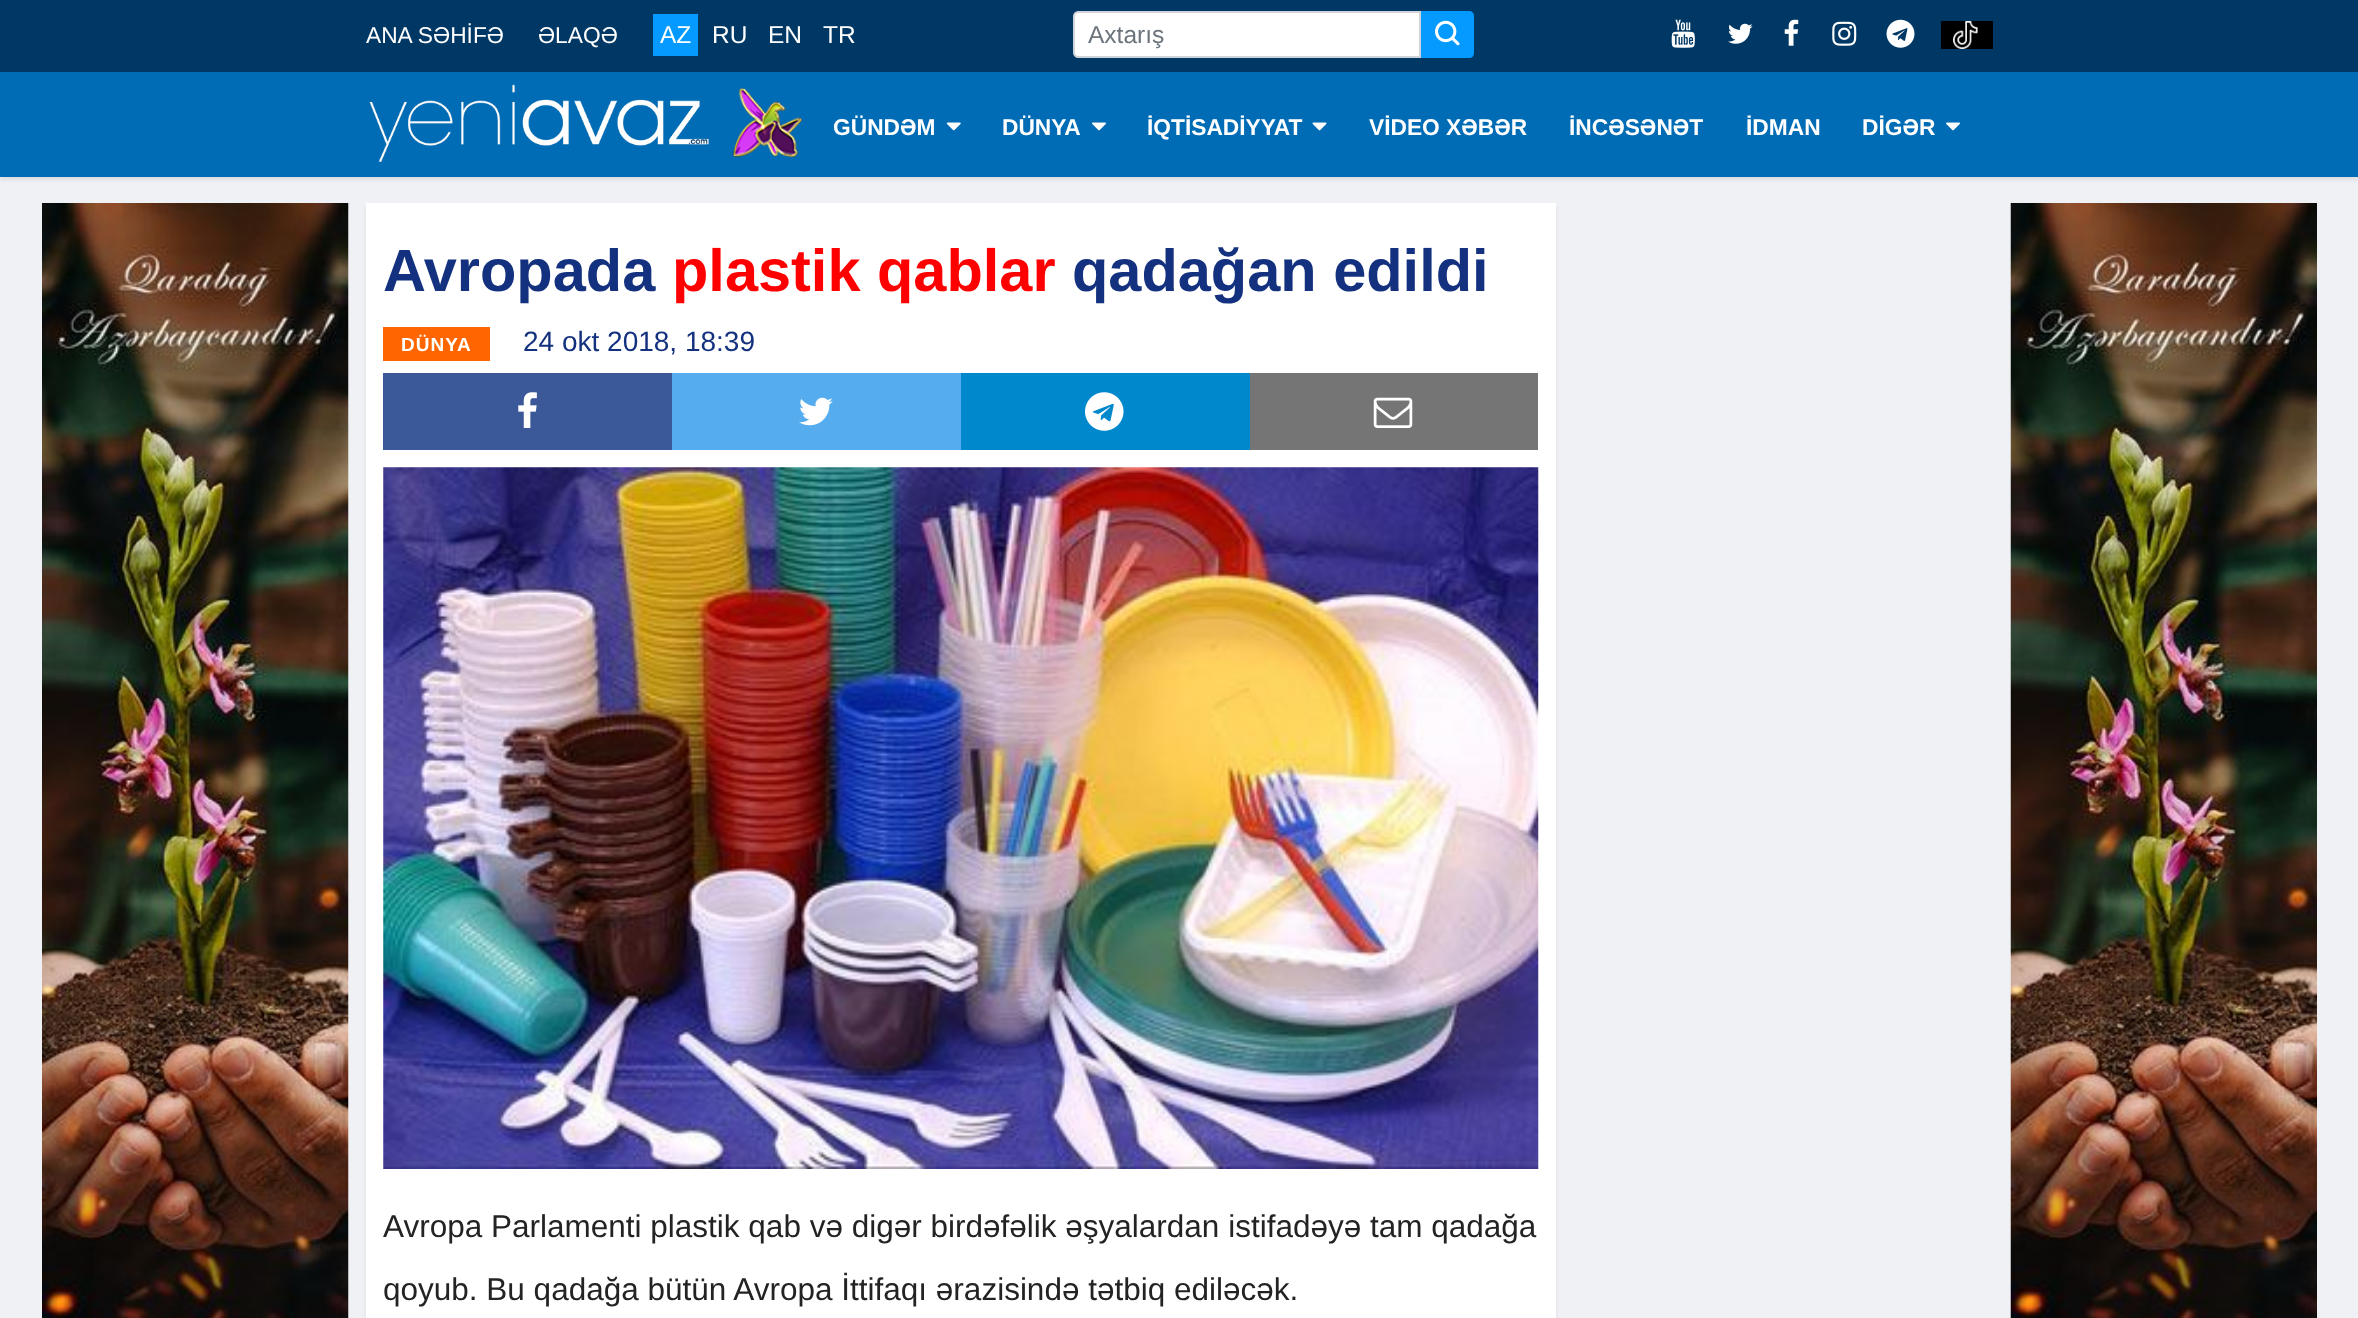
<svg xmlns="http://www.w3.org/2000/svg" width="2358" height="1318" viewBox="0 0 2358 1318">
  <rect width="100%" height="100%" fill="#f0f1f4"/>
  <path d="M0 0h2358v72H0z" fill="#003865"/>
  <path d="M653 14h45v42H653z" fill="#049aff"/>
  <path d="M1078 12H1420V57H1078C1076 57 1074 55 1074 53V16C1074 14 1076 12 1078 12Z" fill="#fff" stroke="#ced4da" stroke-width="2"/>
  <path d="M1421 11H1469C1472 11 1474 13 1474 16V53C1474 56 1472 58 1469 58H1421Z" fill="#049aff"/>
  <image x="1435" y="20" width="25" height="26" href="img/1.png"/>
  <image x="1671" y="19" width="24" height="29" href="img/2.png"/>
  <image x="1784" y="19" width="15" height="27" href="img/3.png"/>
  <image x="1832" y="21" width="25" height="25" href="img/4.png"/>
  <image x="1886" y="19" width="29" height="29" href="img/5.png"/>
  <path d="M1941 21h52v28H1941z" fill="#000"/>
  <image x="1728" y="23" width="25" height="21" href="img/6.png"/>
  <image x="1953" y="21" width="25" height="28" href="img/7.png"/>
  <path d="M0 75h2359v105H0z" fill="#00000014" filter="blur(2px)"/>
  <path d="M0 72h2358v105H0z" fill="#006cb5"/>
  <image x="369" y="84" width="340" height="78" href="img/8.png"/>
  <image x="732" y="87" width="71" height="71" href="img/9.png"/>
  <image x="946" y="122" width="15" height="9" href="img/10.png"/>
  <image x="1092" y="122" width="14" height="9" href="img/11.png"/>
  <image x="1312" y="122" width="15" height="9" href="img/12.png"/>
  <image x="1946" y="122" width="14" height="9" href="img/11.png"/>
  <image x="42" y="203" width="307" height="1115" href="img/13.png"/>
  <image x="2010" y="203" width="307" height="1115" href="img/14.png"/>
  <path d="M366 207h1190v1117H366z" fill="#00000014" filter="blur(2px)"/>
  <path d="M366 203h1190v1115H366z" fill="#fff"/>
  <path d="M383 327h107v34H383z" fill="#f60"/>
  <path d="M383 373h289v77H383z" fill="#3b5999"/>
  <image x="518" y="392" width="19" height="36" href="img/15.png"/>
  <path d="M672 373h289v77H672z" fill="#55acee"/>
  <image x="799" y="397" width="34" height="29" href="img/16.png"/>
  <path d="M961 373h289v77H961z" fill="#08c"/>
  <image x="1085" y="392" width="39" height="39" href="img/17.png"/>
  <path d="M1250 373h288v77H1250z" fill="#757575"/>
  <image x="1373" y="397" width="40" height="31" href="img/18.png"/>
  <image x="383" y="467" width="1156" height="702" href="img/19.png"/>
  <g font-family="Liberation Sans" font-size="22.75" fill="#fff">
    <text x="366" y="43">ANA SƏHİFƏ</text>
    <text x="538" y="43">ƏLAQƏ</text>
  </g>
  <g font-family="Liberation Sans" font-size="24.5" fill="#fff">
    <text x="660" y="43">AZ</text>
    <text x="712" y="43">RU</text>
    <text x="768" y="43">EN</text>
    <text x="823" y="43">TR</text>
  </g>
  <text x="1088" y="43" font-family="Liberation Sans" font-size="24.5" fill="#6c757d">Axtarış</text>
  <g font-family="Liberation Sans" font-size="22.75" font-weight="bold" fill="#fff">
    <text x="833" y="135">GÜNDƏM</text>
    <text x="1002" y="135">DÜNYA</text>
    <text x="1147" y="135">İQTİSADİYYAT</text>
    <text x="1369" y="135">VİDEO XƏBƏR</text>
    <text x="1569" y="135">İNCƏSƏNƏT</text>
    <text x="1746" y="135">İDMAN</text>
    <text x="1862" y="135">DİGƏR</text>
  </g>
  <text x="383" y="291" font-family="Liberation Sans" font-size="59.5" font-weight="bold" fill="#13317f">Avropada</text>
  <text x="672" y="291" font-family="Liberation Sans" font-size="59.5" font-weight="bold" fill="#f00">plastik qablar</text>
  <text x="1072" y="291" font-family="Liberation Sans" font-size="59.5" font-weight="bold" fill="#13317f">qadağan edildi</text>
  <text x="401" y="351" font-family="Liberation Sans" font-size="19" font-weight="bold" letter-spacing="1" fill="#fff">DÜNYA</text>
  <text x="523" y="351" font-family="Liberation Sans" font-size="28" fill="#13317f">24 okt 2018, 18:39</text>
  <g font-family="Liberation Sans" font-size="31.5" fill="#232323">
    <text x="383" y="1237">Avropa Parlamenti plastik qab və digər birdəfəlik əşyalardan istifadəyə tam qadağa</text>
    <text x="383" y="1300">qoyub. Bu qadağa bütün Avropa İttifaqı ərazisində tətbiq ediləcək.</text>
  </g>
</svg>
